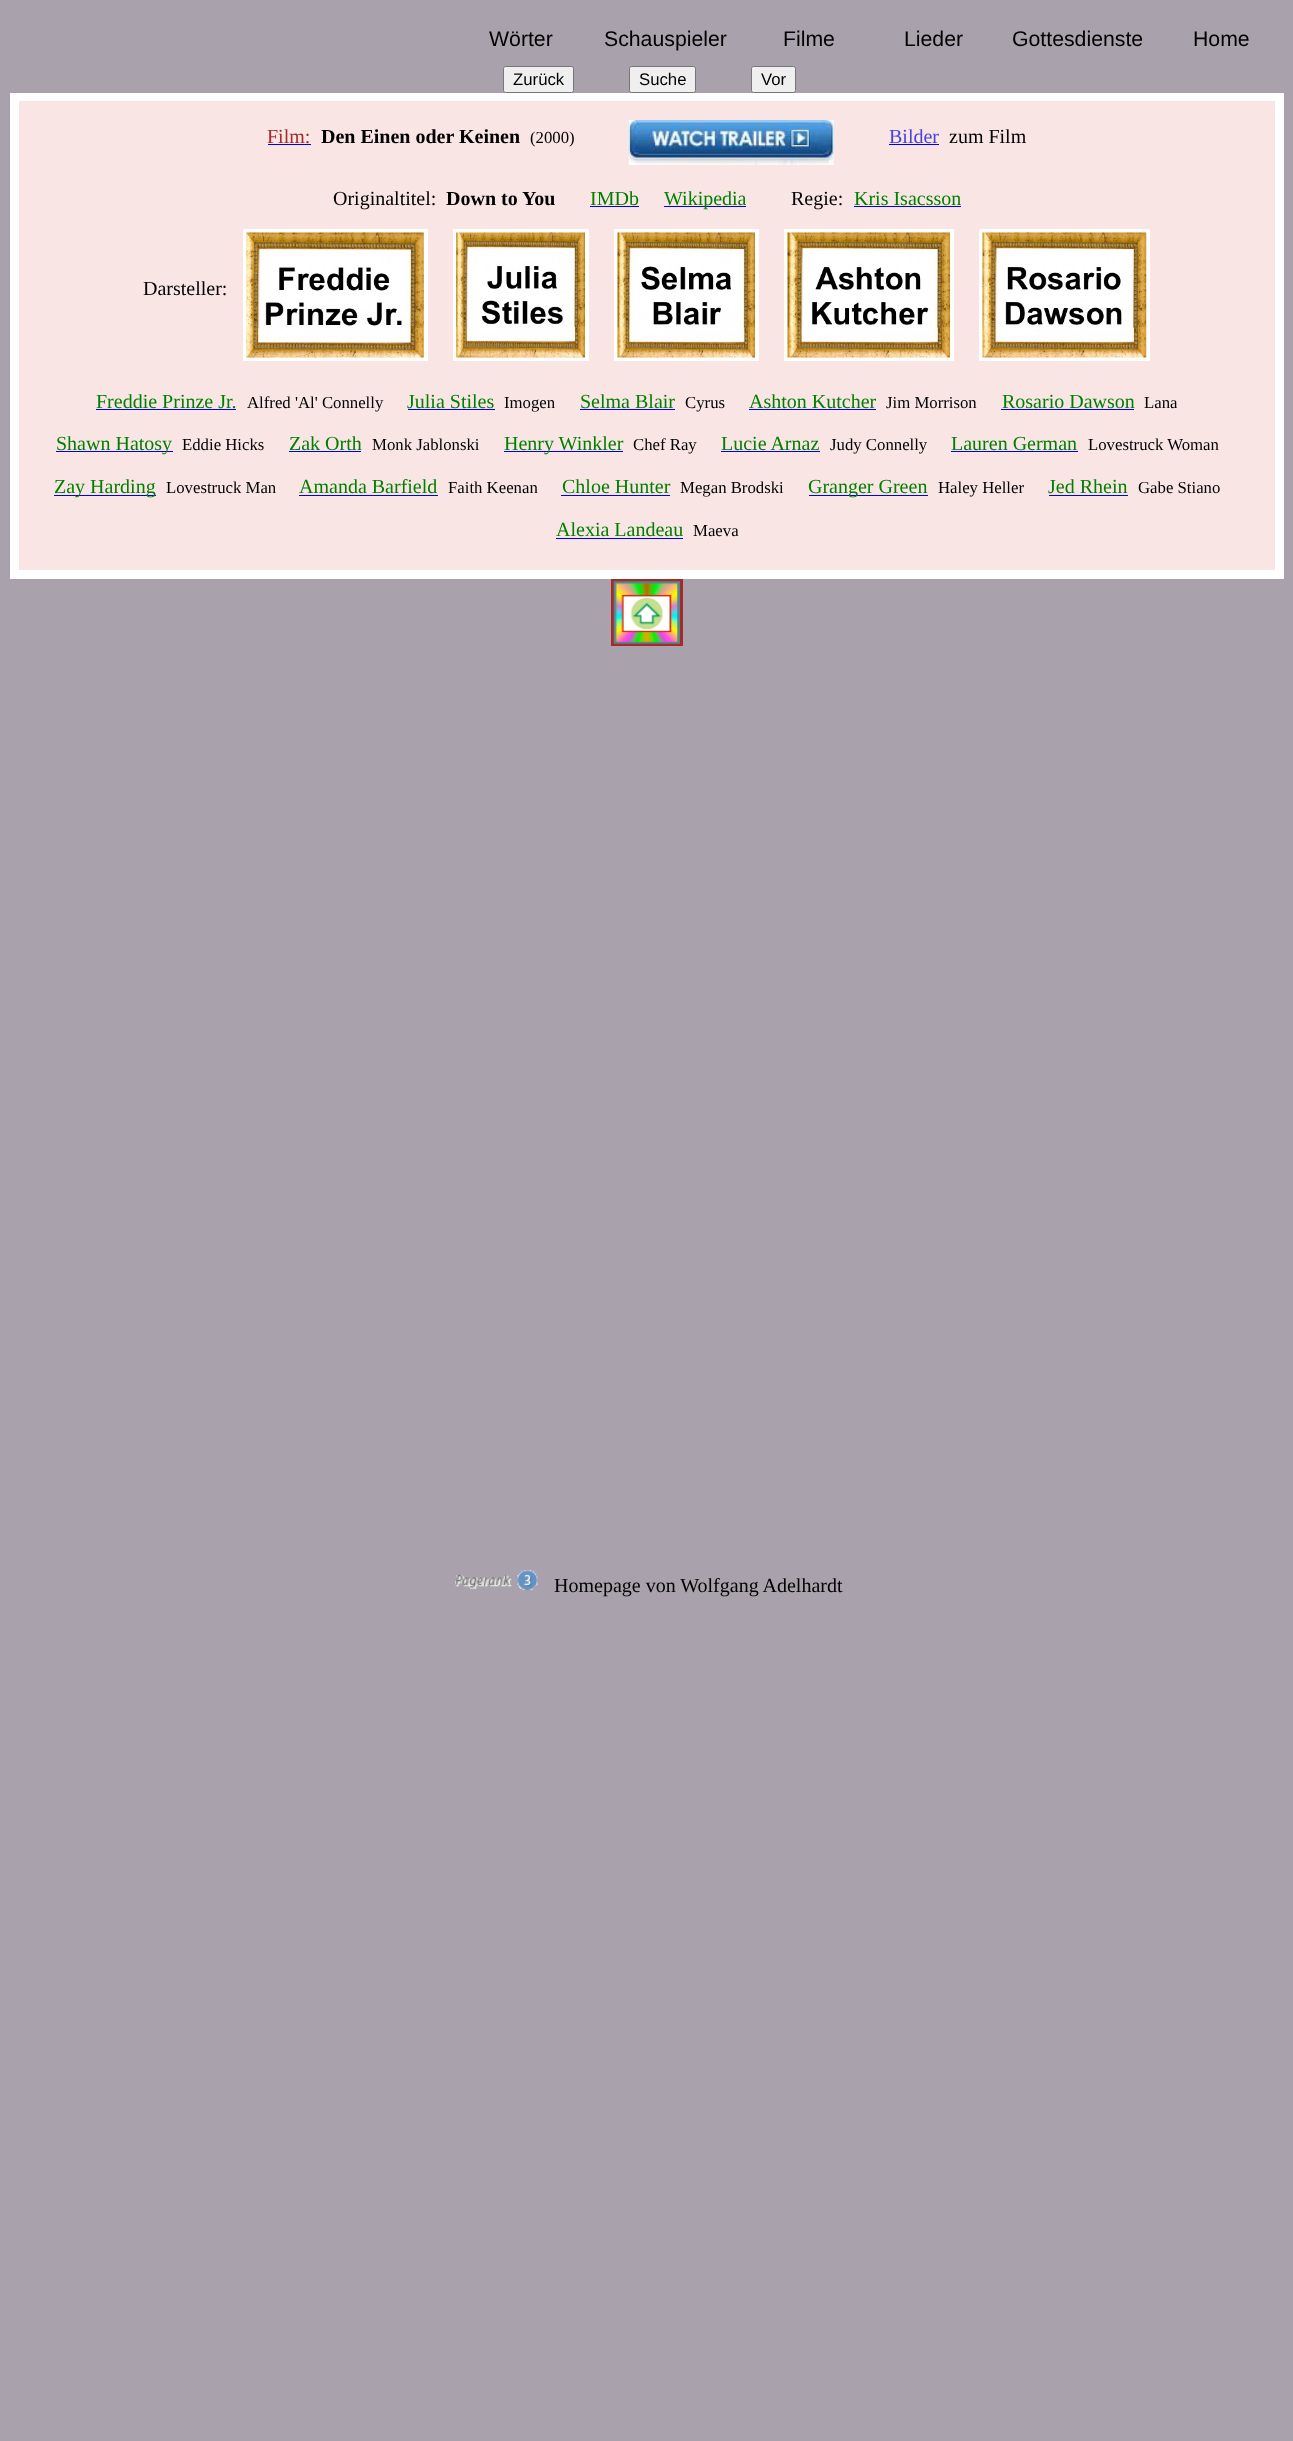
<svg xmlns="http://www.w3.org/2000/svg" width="1293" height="2441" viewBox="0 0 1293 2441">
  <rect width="100%" height="100%" fill="#a9a1ab"/>
  <rect x="503.5" y="66.5" width="70" height="26" rx="2" fill="#efefef" stroke="#767676"/>
  <rect x="629.5" y="66.5" width="66" height="26" rx="2" fill="#efefef" stroke="#767676"/>
  <rect x="751.5" y="66.5" width="44" height="26" rx="2" fill="#efefef" stroke="#767676"/>
  <path d="M10 93h1274v486H10z" fill="#fff"/>
  <path d="M19 101h1256v469H19z" fill="#fae5e5"/>
  <path d="M268 144h43v1H268z" fill="#00e"/>
  <image x="628" y="120" width="206" height="45" href="img/1.png"/>
  <path d="M889 144h50v1H889z" fill="#00e"/>
  <path d="M590 206h49v1H590z" fill="#00e"/>
  <path d="M664 206h82v1H664z" fill="#00e"/>
  <path d="M854 206h107v1H854z" fill="#00e"/>
  <path d="M245 231h181v128H245z" fill="none" stroke="#fff" stroke-width="4"/>
  <path d="M455 231h132v128H455z" fill="none" stroke="#fff" stroke-width="4"/>
  <path d="M616 231h141v128H616z" fill="none" stroke="#fff" stroke-width="4"/>
  <path d="M786 231h166v128H786z" fill="none" stroke="#fff" stroke-width="4"/>
  <path d="M981 231h167v128H981z" fill="none" stroke="#fff" stroke-width="4"/>
  <image x="246" y="232" width="178" height="126" href="img/2.png"/>
  <image x="456" y="232" width="129" height="126" href="img/3.png"/>
  <image x="617" y="232" width="138" height="126" href="img/4.png"/>
  <image x="787" y="232" width="163" height="126" href="img/5.png"/>
  <image x="982" y="232" width="165" height="126" href="img/6.png"/>
  <path d="M96 409h140v1H96z" fill="#00e"/>
  <path d="M408 409h87v1H408z" fill="#00e"/>
  <path d="M580 409h95v1H580z" fill="#00e"/>
  <path d="M749 409h127v1H749z" fill="#00e"/>
  <path d="M1001 409h133v1H1001z" fill="#00e"/>
  <path d="M56 451h117v1H56z" fill="#00e"/>
  <path d="M289 451h72v1H289z" fill="#00e"/>
  <path d="M504 451h119v1H504z" fill="#00e"/>
  <path d="M721 451h99v1H721z" fill="#00e"/>
  <path d="M951 451h127v1H951z" fill="#00e"/>
  <path d="M54 495h102v1H54z" fill="#00e"/>
  <path d="M299 495h139v1H299z" fill="#00e"/>
  <path d="M561 495h109v1H561z" fill="#00e"/>
  <path d="M809 495h119v1H809z" fill="#00e"/>
  <path d="M1049 495h79v1H1049z" fill="#00e"/>
  <path d="M556 538h127v1H556z" fill="#00e"/>
  <path d="M612.5 580.5h69v64H612.5z" fill="none" stroke="#a52a2a" stroke-width="3"/>
  <image x="613" y="581" width="67" height="63" href="img/7.png"/>
  <image x="455" y="1570" width="83" height="21" href="img/8.png"/>
  <g font-family="Liberation Sans" font-size="21.25" fill="#000">
    <text x="489" y="46">Wörter</text>
    <text x="604" y="46">Schauspieler</text>
    <text x="783" y="46">Filme</text>
    <text x="904" y="46">Lieder</text>
    <text x="1012" y="46">Gottesdienste</text>
    <text x="1193" y="46">Home</text>
  </g>
  <g font-family="Liberation Sans" font-size="16.75" fill="#000">
    <text x="513" y="85">Zurück</text>
    <text x="639" y="85">Suche</text>
    <text x="761" y="85">Vor</text>
  </g>
  <text x="267" y="143" font-family="Liberation Serif" font-size="20" fill="#a52a2a">Film:</text>
  <text x="321" y="143" font-family="Liberation Serif" font-size="20" font-weight="bold" fill="#000">Den Einen oder Keinen</text>
  <text x="530" y="143" font-family="Liberation Serif" font-size="16.75" fill="#000">(2000)</text>
  <text x="889" y="143" font-family="Liberation Serif" font-size="20" fill="#44d">Bilder</text>
  <g font-family="Liberation Serif" font-size="20" fill="#000">
    <text x="949" y="143">zum Film</text>
    <text x="333" y="205">Originaltitel:</text>
  </g>
  <text x="446" y="205" font-family="Liberation Serif" font-size="20" font-weight="bold" fill="#000">Down to You</text>
  <g font-family="Liberation Serif" font-size="20" fill="#008000">
    <text x="590" y="205">IMDb</text>
    <text x="664" y="205">Wikipedia</text>
  </g>
  <text x="791" y="205" font-family="Liberation Serif" font-size="20" fill="#000">Regie:</text>
  <text x="854" y="205" font-family="Liberation Serif" font-size="20" fill="#008000">Kris Isacsson</text>
  <text x="143" y="295" font-family="Liberation Serif" font-size="20" fill="#000">Darsteller:</text>
  <text x="96" y="408" font-family="Liberation Serif" font-size="20" fill="#008000">Freddie Prinze Jr.</text>
  <text x="247" y="408" font-family="Liberation Serif" font-size="16.75" fill="#000">Alfred 'Al' Connelly</text>
  <text x="407" y="408" font-family="Liberation Serif" font-size="20" fill="#008000">Julia Stiles</text>
  <text x="504" y="408" font-family="Liberation Serif" font-size="16.75" fill="#000">Imogen</text>
  <text x="580" y="408" font-family="Liberation Serif" font-size="20" fill="#008000">Selma Blair</text>
  <text x="685" y="408" font-family="Liberation Serif" font-size="16.75" fill="#000">Cyrus</text>
  <text x="749" y="408" font-family="Liberation Serif" font-size="20" fill="#008000">Ashton Kutcher</text>
  <text x="886" y="408" font-family="Liberation Serif" font-size="16.75" fill="#000">Jim Morrison</text>
  <text x="1002" y="408" font-family="Liberation Serif" font-size="20" fill="#008000">Rosario Dawson</text>
  <text x="1144" y="408" font-family="Liberation Serif" font-size="16.75" fill="#000">Lana</text>
  <text x="56" y="450" font-family="Liberation Serif" font-size="20" fill="#008000">Shawn Hatosy</text>
  <text x="182" y="450" font-family="Liberation Serif" font-size="16.75" fill="#000">Eddie Hicks</text>
  <text x="289" y="450" font-family="Liberation Serif" font-size="20" fill="#008000">Zak Orth</text>
  <text x="372" y="450" font-family="Liberation Serif" font-size="16.75" fill="#000">Monk Jablonski</text>
  <text x="504" y="450" font-family="Liberation Serif" font-size="20" fill="#008000">Henry Winkler</text>
  <text x="633" y="450" font-family="Liberation Serif" font-size="16.75" fill="#000">Chef Ray</text>
  <text x="721" y="450" font-family="Liberation Serif" font-size="20" fill="#008000">Lucie Arnaz</text>
  <text x="830" y="450" font-family="Liberation Serif" font-size="16.75" fill="#000">Judy Connelly</text>
  <text x="951" y="450" font-family="Liberation Serif" font-size="20" fill="#008000">Lauren German</text>
  <text x="1088" y="450" font-family="Liberation Serif" font-size="16.75" fill="#000">Lovestruck Woman</text>
  <text x="54" y="493" font-family="Liberation Serif" font-size="20" fill="#008000">Zay Harding</text>
  <text x="166" y="493" font-family="Liberation Serif" font-size="16.75" fill="#000">Lovestruck Man</text>
  <text x="299" y="493" font-family="Liberation Serif" font-size="20" fill="#008000">Amanda Barfield</text>
  <text x="448" y="493" font-family="Liberation Serif" font-size="16.75" fill="#000">Faith Keenan</text>
  <text x="562" y="493" font-family="Liberation Serif" font-size="20" fill="#008000">Chloe Hunter</text>
  <text x="680" y="493" font-family="Liberation Serif" font-size="16.75" fill="#000">Megan Brodski</text>
  <text x="808" y="493" font-family="Liberation Serif" font-size="20" fill="#008000">Granger Green</text>
  <text x="938" y="493" font-family="Liberation Serif" font-size="16.75" fill="#000">Haley Heller</text>
  <text x="1048" y="493" font-family="Liberation Serif" font-size="20" fill="#008000">Jed Rhein</text>
  <text x="1138" y="493" font-family="Liberation Serif" font-size="16.75" fill="#000">Gabe Stiano</text>
  <text x="556" y="536" font-family="Liberation Serif" font-size="20" fill="#008000">Alexia Landeau</text>
  <text x="693" y="536" font-family="Liberation Serif" font-size="16.75" fill="#000">Maeva</text>
  <text x="554" y="1592" font-family="Liberation Serif" font-size="20" fill="#000">Homepage von Wolfgang Adelhardt</text>
</svg>
